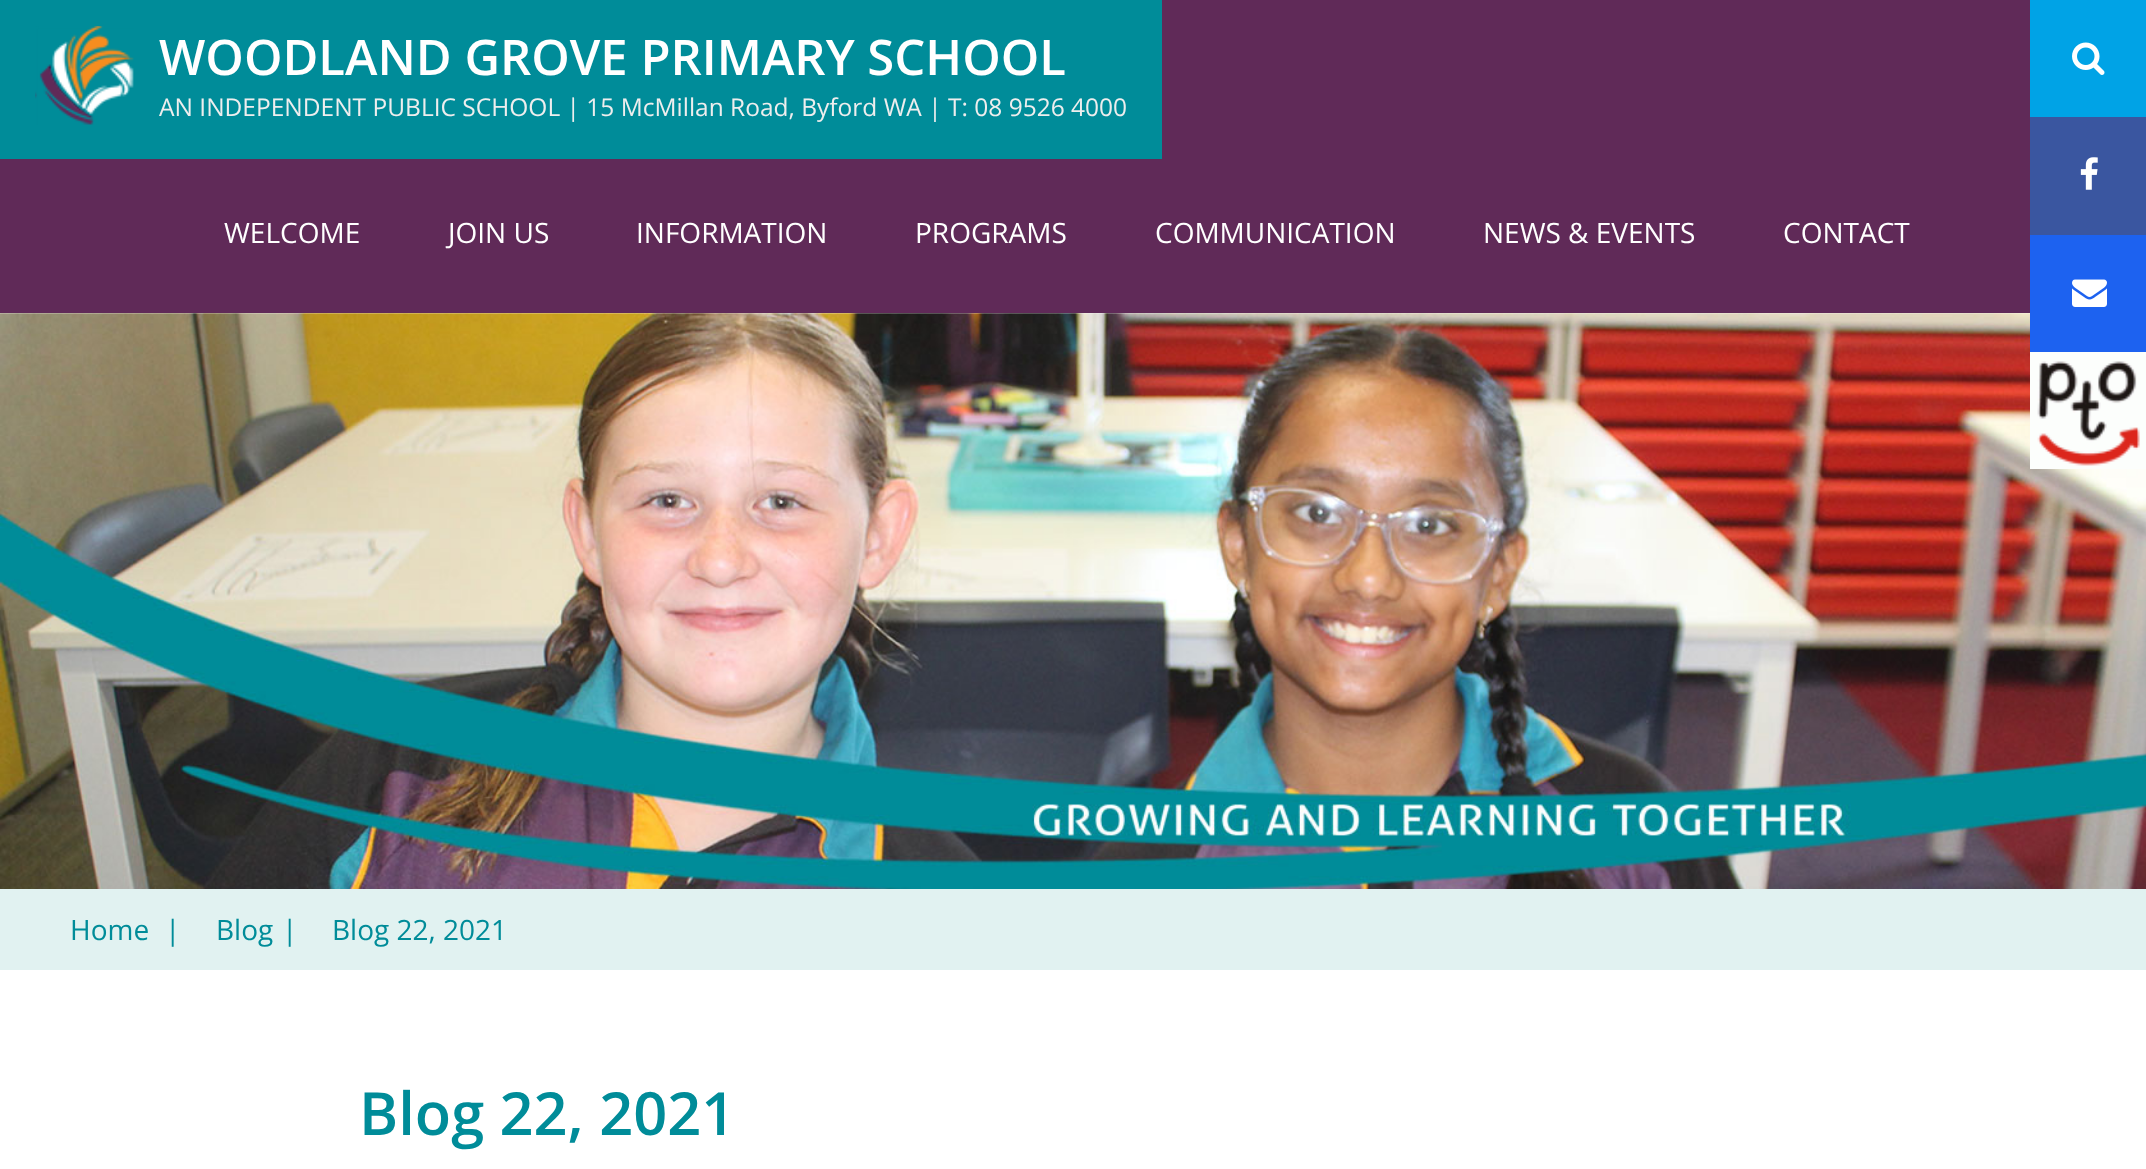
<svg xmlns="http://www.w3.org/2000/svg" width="2146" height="1169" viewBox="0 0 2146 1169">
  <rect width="100%" height="100%" fill="#fff"/>
  <path d="M0 0h2030v313H0z" fill="#602a58"/>
  <path d="M0 0h1162v159H0z" fill="#008c99"/>
  <image x="35" y="26" width="99" height="99" href="img/1.png"/>
  <path d="M2030 0h116v117H2030z" fill="#00a3e6"/>
  <image x="2072" y="42" width="33" height="33" href="img/2.png"/>
  <path d="M2030 117h116v118H2030z" fill="#3a56a0"/>
  <image x="2080" y="157" width="18" height="33" href="img/3.png"/>
  <image x="0" y="313" width="2146" height="576" href="img/6.png"/>
  <path d="M2030 235h116v117H2030z" fill="#1d62f0"/>
  <image x="2072" y="279" width="35" height="28" href="img/4.png"/>
  <image x="2030" y="352" width="116" height="117" href="img/5.png"/>
  <path d="M0 889h2146v81H0z" fill="#e1f2f1"/>
  <text x="159" y="75" font-family="Open Sans" font-size="49" font-weight="600" fill="#fff">WOODLAND GROVE PRIMARY SCHOOL</text>
  <text x="159" y="116" font-family="Open Sans" font-size="24.5" fill="#eee">AN INDEPENDENT PUBLIC SCHOOL | 15 McMillan Road, Byford WA | T: 08 9526 4000</text>
  <g font-family="Open Sans" font-size="28" fill="#fff">
    <text x="224" y="243">WELCOME</text>
    <text x="448" y="243">JOIN US</text>
    <text x="636" y="243">INFORMATION</text>
    <text x="915" y="243">PROGRAMS</text>
    <text x="1155" y="243">COMMUNICATION</text>
    <text x="1483" y="243">NEWS &amp; EVENTS</text>
    <text x="1783" y="243">CONTACT</text>
  </g>
  <g font-family="Open Sans" font-size="28" fill="#008c99">
    <text x="70" y="940">Home</text>
    <text x="165" y="940">|</text>
    <text x="216" y="940">Blog</text>
    <text x="282" y="940">|</text>
    <text x="332" y="940">Blog 22, 2021</text>
  </g>
  <text x="359" y="1135" font-family="Open Sans" font-size="59.5" font-weight="600" fill="#008c99">Blog 22, 2021</text>
</svg>
